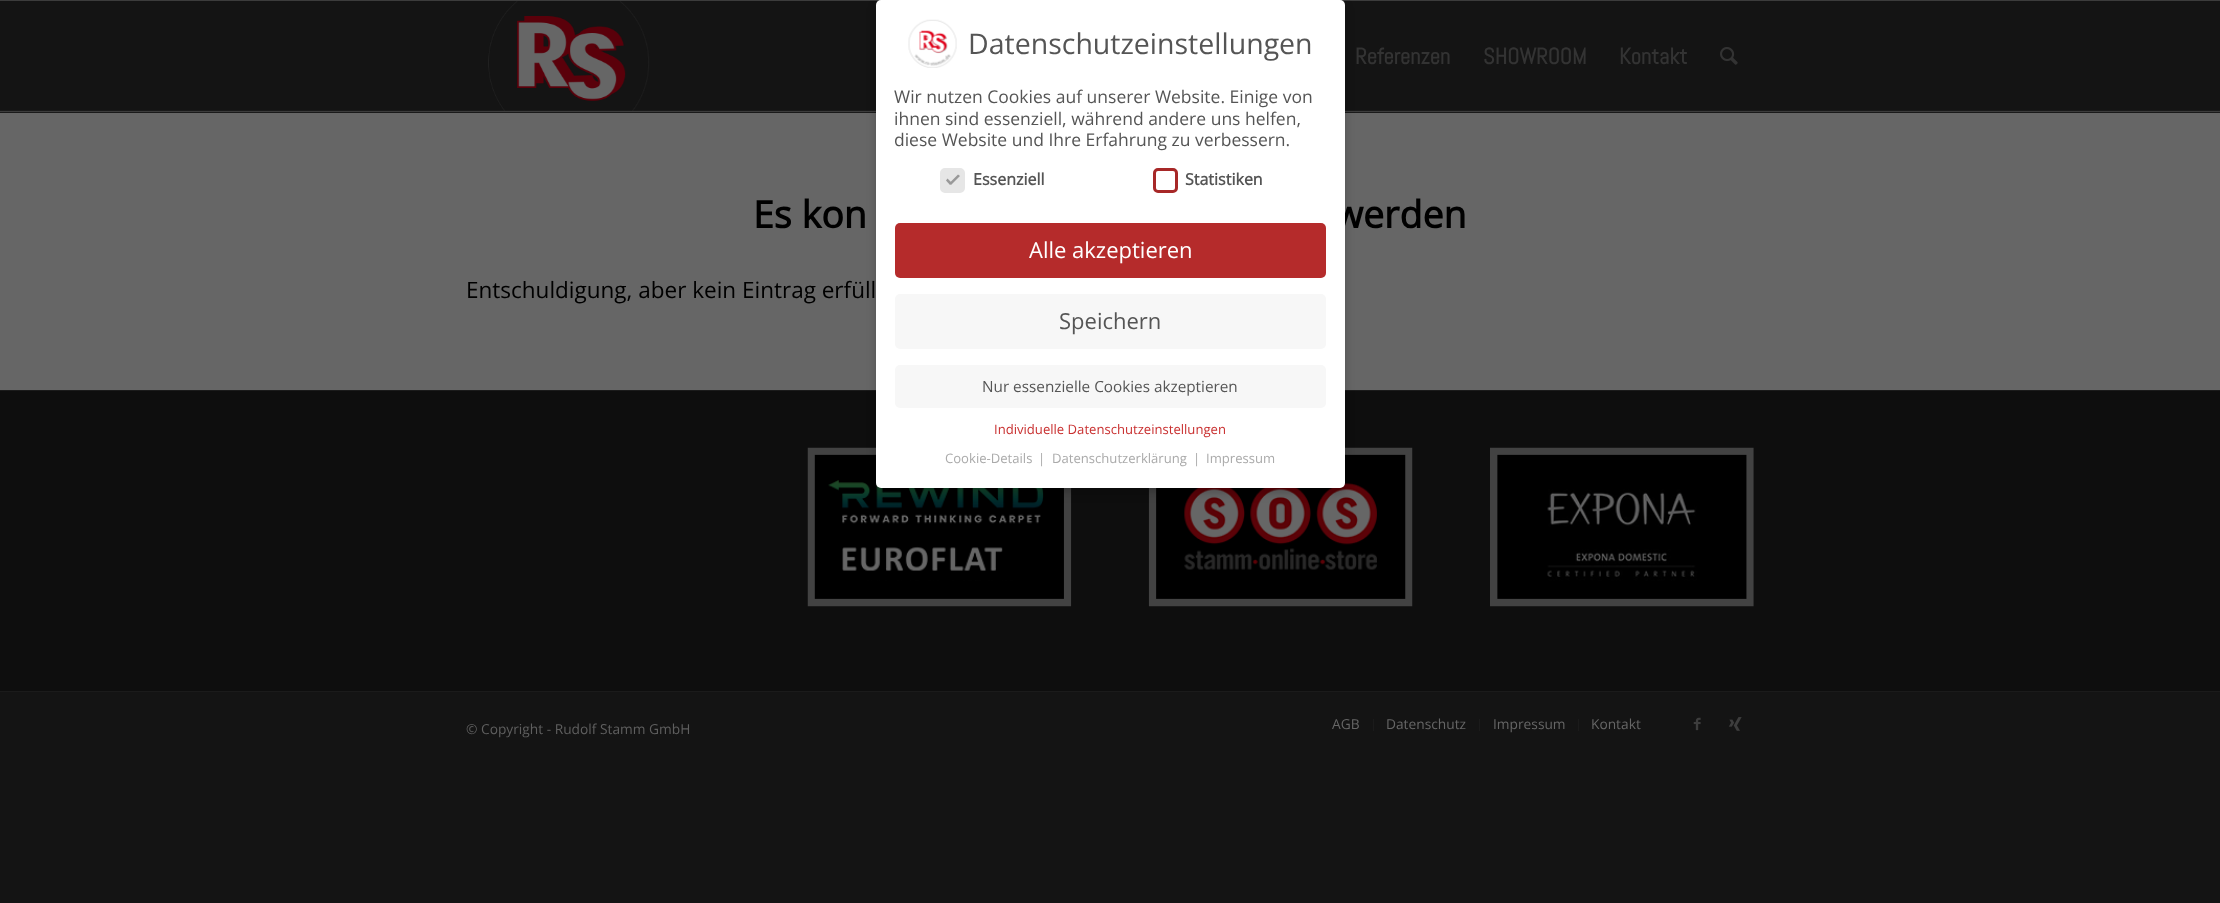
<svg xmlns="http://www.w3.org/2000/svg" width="2220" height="903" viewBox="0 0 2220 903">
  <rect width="100%" height="100%" fill="#141414"/>
  <path d="M0 0h2220v1H0z" fill="#3c3c3c"/>
  <path d="M0 111h2220v1H0z" fill="#3c3c3c"/>
  <path d="M0 113h2220v277H0z" fill="#666"/>
  <path d="M0 112h2220v1H0z" fill="#1a1a1a"/>
  <path d="M0 110h2220v1H0z" fill="#1a1a1a"/>
  <path d="M0 391h2220v300H0z" fill="#0e0e0e"/>
  <path d="M0 390h2220v1H0z" fill="#1b1b1b"/>
  <image x="807" y="447" width="265" height="160" href="img/4.png"/>
  <image x="1148" y="447" width="265" height="160" href="img/5.png"/>
  <rect x="876" y="5" width="469" height="488" rx="5" fill="#00000033" filter="blur(5px)"/>
  <image x="488" y="1" width="162" height="110" href="img/2.png"/>
  <image x="1720" y="47" width="18" height="18" href="img/3.png"/>
  <image x="1490" y="447" width="264" height="160" href="img/6.png"/>
  <path d="M0 691h2220v1H0z" fill="#1b1b1b"/>
  <path d="M1373 719h1v12H1373z" fill="#1b1b1b"/>
  <path d="M1479 719h1v12H1479z" fill="#1b1b1b"/>
  <path d="M1578 719h1v12H1578z" fill="#1b1b1b"/>
  <image x="1693" y="717" width="8" height="14" href="img/7.png"/>
  <image x="1728" y="717" width="14" height="14" href="img/8.png"/>
  <g font-family="Abel" font-size="22.5" font-weight="bold" fill="#333">
    <text x="1355" y="64">Referenzen</text>
    <text x="1483" y="64">SHOWROOM</text>
    <text x="1619" y="64">Kontakt</text>
  </g>
  <g font-family="Open Sans" font-size="37.5" font-weight="bold" fill="#000">
    <text x="753" y="228">Es kon</text>
    <text x="1334" y="228">werden</text>
  </g>
  <rect x="876" width="469" height="488" rx="5" fill="#fff"/>
  <rect x="1154.5" y="169.5" width="22" height="22" rx="3.5" fill="none" stroke="#a72828" stroke-width="3"/>
  <text x="1185" y="185" font-family="Open Sans" font-size="16" font-weight="bold" fill="#555">Statistiken</text>
  <rect x="941.5" y="169.5" width="22" height="22" rx="3.5" fill="#e6e6e6" stroke="#e6e6e6" stroke-width="3"/>
  <path d="M958 174.5L960 176L951 185L949.5 183Z" fill="#999"/>
  <path d="M947.5 178.5L952 183L950 185L946 180.5Z" fill="#999"/>
  <text x="973" y="185" font-family="Open Sans" font-size="16" font-weight="bold" fill="#555">Essenziell</text>
  <g font-family="Open Sans" font-size="13.1" fill="#aaa">
    <text x="1206" y="463">Impressum</text>
    <text x="1193" y="463">|</text>
    <text x="1052" y="463">Datenschutzerklärung</text>
    <text x="1038" y="463">|</text>
    <text x="945" y="463">Cookie-Details</text>
  </g>
  <text x="994" y="434" font-family="Open Sans" font-size="13.1" fill="#c93030">Individuelle Datenschutzeinstellungen</text>
  <rect x="895" y="365" width="431" height="43" rx="5" fill="#f7f7f7"/>
  <text x="982" y="392" font-family="Open Sans" font-size="15.3" fill="#555">Nur essenzielle Cookies akzeptieren</text>
  <rect x="895" y="294" width="431" height="55" rx="5" fill="#f7f7f7"/>
  <text x="1059" y="329" font-family="Open Sans" font-size="22" fill="#555">Speichern</text>
  <rect x="895" y="223" width="431" height="55" rx="5" fill="#b52b2b"/>
  <text x="1029" y="258" font-family="Open Sans" font-size="22" fill="#fff">Alle akzeptieren</text>
  <g font-family="Open Sans" font-size="17.5" fill="#555">
    <text x="894" y="146">diese Website und Ihre Erfahrung zu verbessern.</text>
    <text x="894" y="125">ihnen sind essenziell, während andere uns helfen,</text>
    <text x="894" y="103">Wir nutzen Cookies auf unserer Website. Einige von</text>
  </g>
  <text x="968" y="54" font-family="Open Sans" font-size="28.5" fill="#555">Datenschutzeinstellungen</text>
  <image x="908" y="19" width="49" height="49" href="img/1.png"/>
  <text x="466" y="298" font-family="Open Sans" font-size="22.5" fill="#000">Entschuldigung, aber kein Eintrag erfüll</text>
  <text x="466" y="734" font-family="Open Sans" font-size="13.75" fill="#5f5f5f">© Copyright - Rudolf Stamm GmbH</text>
  <g font-family="Open Sans" font-size="13.75" fill="#666">
    <text x="1332" y="729">AGB</text>
    <text x="1386" y="729">Datenschutz</text>
    <text x="1493" y="729">Impressum</text>
    <text x="1591" y="729">Kontakt</text>
  </g>
</svg>
